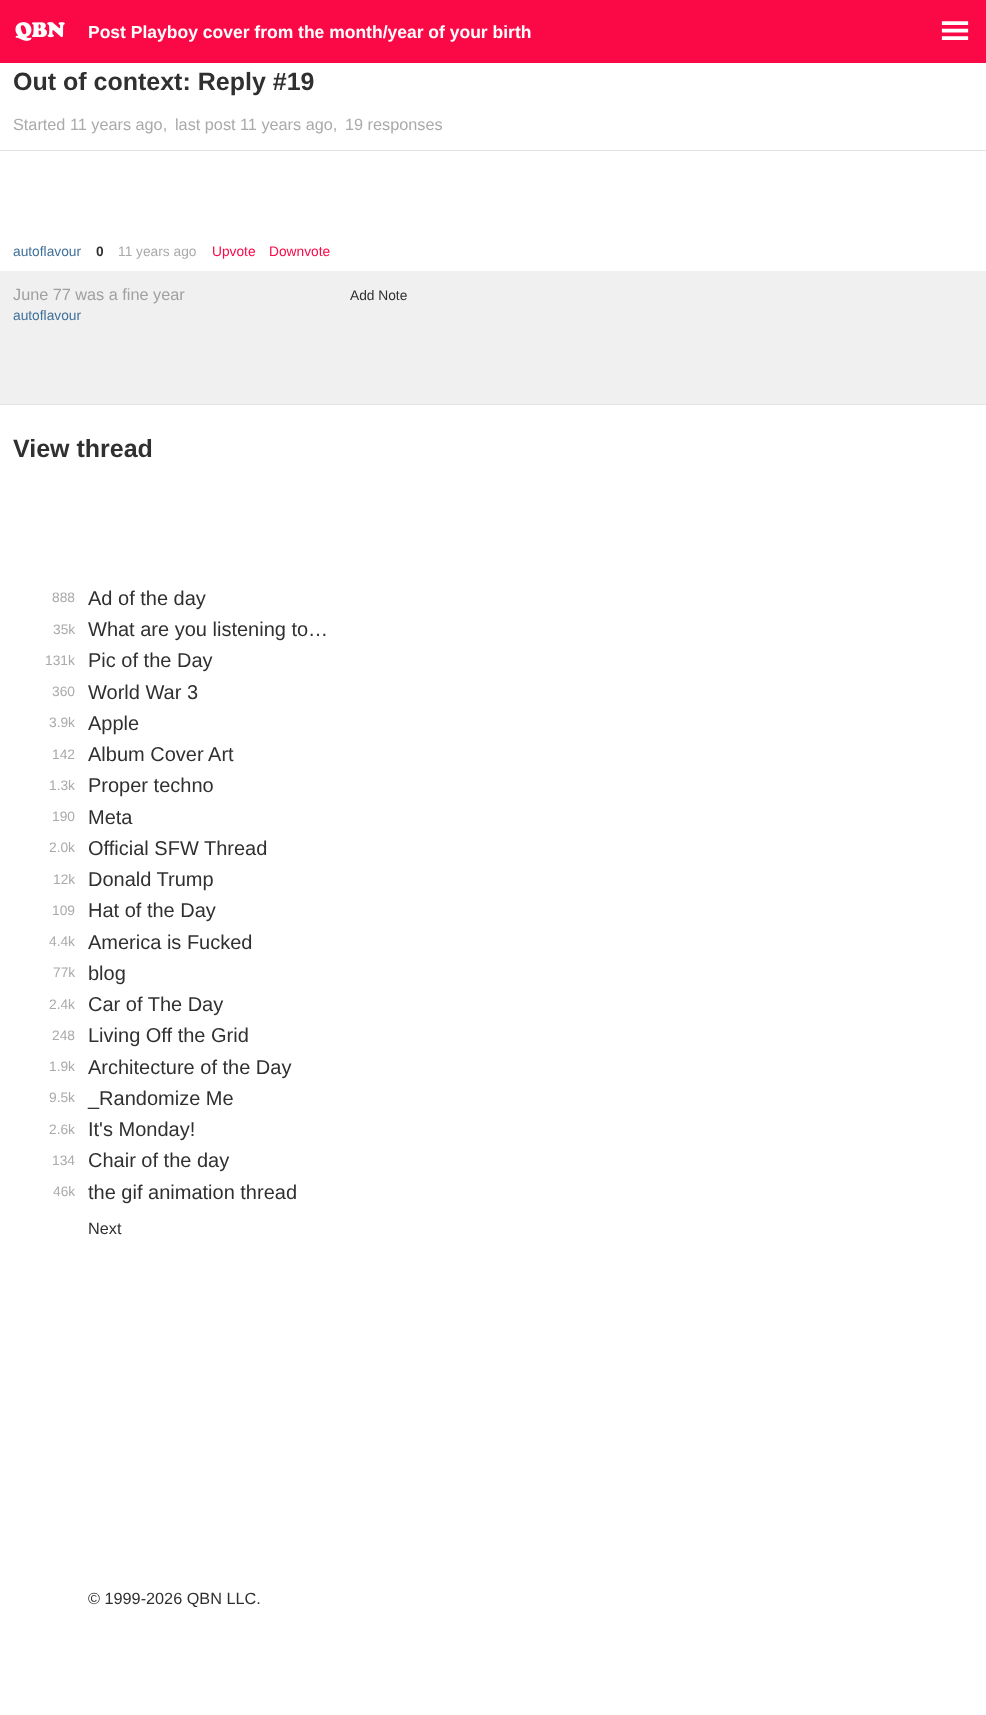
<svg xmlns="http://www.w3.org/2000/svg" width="986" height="1715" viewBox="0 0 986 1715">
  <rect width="100%" height="100%" fill="#fff"/>
  <path d="M0 0h986v63H0z" fill="#fa0946"/>
  <image x="15" y="22" width="50" height="19" href="img/1.png"/>
  <image x="941" y="21" width="28" height="19" href="img/2.png"/>
  <path d="M0 404h986v1H0z" fill="#e3e3e3"/>
  <path d="M0 150h986v1H0z" fill="#e3e3e3"/>
  <path d="M0 271h986v133H0z" fill="#f0f0f0"/>
  <text x="88" y="38" font-family="Liberation Sans" font-size="17.5" font-weight="bold" fill="#fff">Post Playboy cover from the month/year of your birth</text>
  <text x="13" y="90" font-family="Liberation Sans" font-size="25" font-weight="bold" fill="#303030">Out of context: Reply #19</text>
  <g font-family="Liberation Sans" font-size="16.25" fill="#aaa">
    <text x="13" y="130">Started 11 years ago,</text>
    <text x="175" y="130">last post 11 years ago,</text>
    <text x="345" y="130">19 responses</text>
  </g>
  <text x="13" y="256" font-family="Liberation Sans" font-size="13.75" fill="#3f709c">autoflavour</text>
  <text x="96" y="256" font-family="Liberation Sans" font-size="13.75" font-weight="bold" fill="#303030">0</text>
  <text x="118" y="256" font-family="Liberation Sans" font-size="13.75" fill="#aaa">11 years ago</text>
  <g font-family="Liberation Sans" font-size="13.75" fill="#fa0946">
    <text x="212" y="256">Upvote</text>
    <text x="269" y="256">Downvote</text>
  </g>
  <text x="13" y="300" font-family="Liberation Sans" font-size="16.25" fill="#a0a0a0">June 77 was a fine year</text>
  <text x="13" y="320" font-family="Liberation Sans" font-size="13.75" fill="#3f709c">autoflavour</text>
  <text x="350" y="300" font-family="Liberation Sans" font-size="13.75" fill="#303030">Add Note</text>
  <text x="13" y="457" font-family="Liberation Sans" font-size="25" font-weight="bold" fill="#303030">View thread</text>
  <text x="52" y="602" font-family="Liberation Sans" font-size="13.75" fill="#aaa">888</text>
  <text x="88" y="605" font-family="Liberation Sans" font-size="20" fill="#303030">Ad of the day</text>
  <text x="53" y="634" font-family="Liberation Sans" font-size="13.75" fill="#aaa">35k</text>
  <text x="88" y="636" font-family="Liberation Sans" font-size="20" fill="#303030">What are you listening to…</text>
  <text x="45" y="665" font-family="Liberation Sans" font-size="13.75" fill="#aaa">131k</text>
  <text x="88" y="667" font-family="Liberation Sans" font-size="20" fill="#303030">Pic of the Day</text>
  <text x="52" y="696" font-family="Liberation Sans" font-size="13.75" fill="#aaa">360</text>
  <text x="88" y="699" font-family="Liberation Sans" font-size="20" fill="#303030">World War 3</text>
  <text x="49" y="727" font-family="Liberation Sans" font-size="13.75" fill="#aaa">3.9k</text>
  <text x="88" y="730" font-family="Liberation Sans" font-size="20" fill="#303030">Apple</text>
  <text x="52" y="759" font-family="Liberation Sans" font-size="13.75" fill="#aaa">142</text>
  <text x="88" y="761" font-family="Liberation Sans" font-size="20" fill="#303030">Album Cover Art</text>
  <text x="49" y="790" font-family="Liberation Sans" font-size="13.75" fill="#aaa">1.3k</text>
  <text x="88" y="792" font-family="Liberation Sans" font-size="20" fill="#303030">Proper techno</text>
  <text x="52" y="821" font-family="Liberation Sans" font-size="13.75" fill="#aaa">190</text>
  <text x="88" y="824" font-family="Liberation Sans" font-size="20" fill="#303030">Meta</text>
  <text x="49" y="852" font-family="Liberation Sans" font-size="13.75" fill="#aaa">2.0k</text>
  <text x="88" y="855" font-family="Liberation Sans" font-size="20" fill="#303030">Official SFW Thread</text>
  <text x="53" y="884" font-family="Liberation Sans" font-size="13.75" fill="#aaa">12k</text>
  <text x="88" y="886" font-family="Liberation Sans" font-size="20" fill="#303030">Donald Trump</text>
  <text x="52" y="915" font-family="Liberation Sans" font-size="13.75" fill="#aaa">109</text>
  <text x="88" y="917" font-family="Liberation Sans" font-size="20" fill="#303030">Hat of the Day</text>
  <text x="49" y="946" font-family="Liberation Sans" font-size="13.75" fill="#aaa">4.4k</text>
  <text x="88" y="949" font-family="Liberation Sans" font-size="20" fill="#303030">America is Fucked</text>
  <text x="53" y="977" font-family="Liberation Sans" font-size="13.75" fill="#aaa">77k</text>
  <text x="88" y="980" font-family="Liberation Sans" font-size="20" fill="#303030">blog</text>
  <text x="49" y="1009" font-family="Liberation Sans" font-size="13.75" fill="#aaa">2.4k</text>
  <text x="88" y="1011" font-family="Liberation Sans" font-size="20" fill="#303030">Car of The Day</text>
  <text x="52" y="1040" font-family="Liberation Sans" font-size="13.75" fill="#aaa">248</text>
  <text x="88" y="1042" font-family="Liberation Sans" font-size="20" fill="#303030">Living Off the Grid</text>
  <text x="49" y="1071" font-family="Liberation Sans" font-size="13.75" fill="#aaa">1.9k</text>
  <text x="88" y="1074" font-family="Liberation Sans" font-size="20" fill="#303030">Architecture of the Day</text>
  <text x="49" y="1102" font-family="Liberation Sans" font-size="13.75" fill="#aaa">9.5k</text>
  <text x="88" y="1105" font-family="Liberation Sans" font-size="20" fill="#303030">_Randomize Me</text>
  <text x="49" y="1134" font-family="Liberation Sans" font-size="13.75" fill="#aaa">2.6k</text>
  <text x="88" y="1136" font-family="Liberation Sans" font-size="20" fill="#303030">It's Monday!</text>
  <text x="52" y="1165" font-family="Liberation Sans" font-size="13.75" fill="#aaa">134</text>
  <text x="88" y="1167" font-family="Liberation Sans" font-size="20" fill="#303030">Chair of the day</text>
  <text x="53" y="1196" font-family="Liberation Sans" font-size="13.75" fill="#aaa">46k</text>
  <text x="88" y="1199" font-family="Liberation Sans" font-size="20" fill="#303030">the gif animation thread</text>
  <g font-family="Liberation Sans" font-size="16.25" fill="#303030">
    <text x="88" y="1234">Next</text>
    <text x="88" y="1604">© 1999-2026 QBN LLC.</text>
  </g>
</svg>
